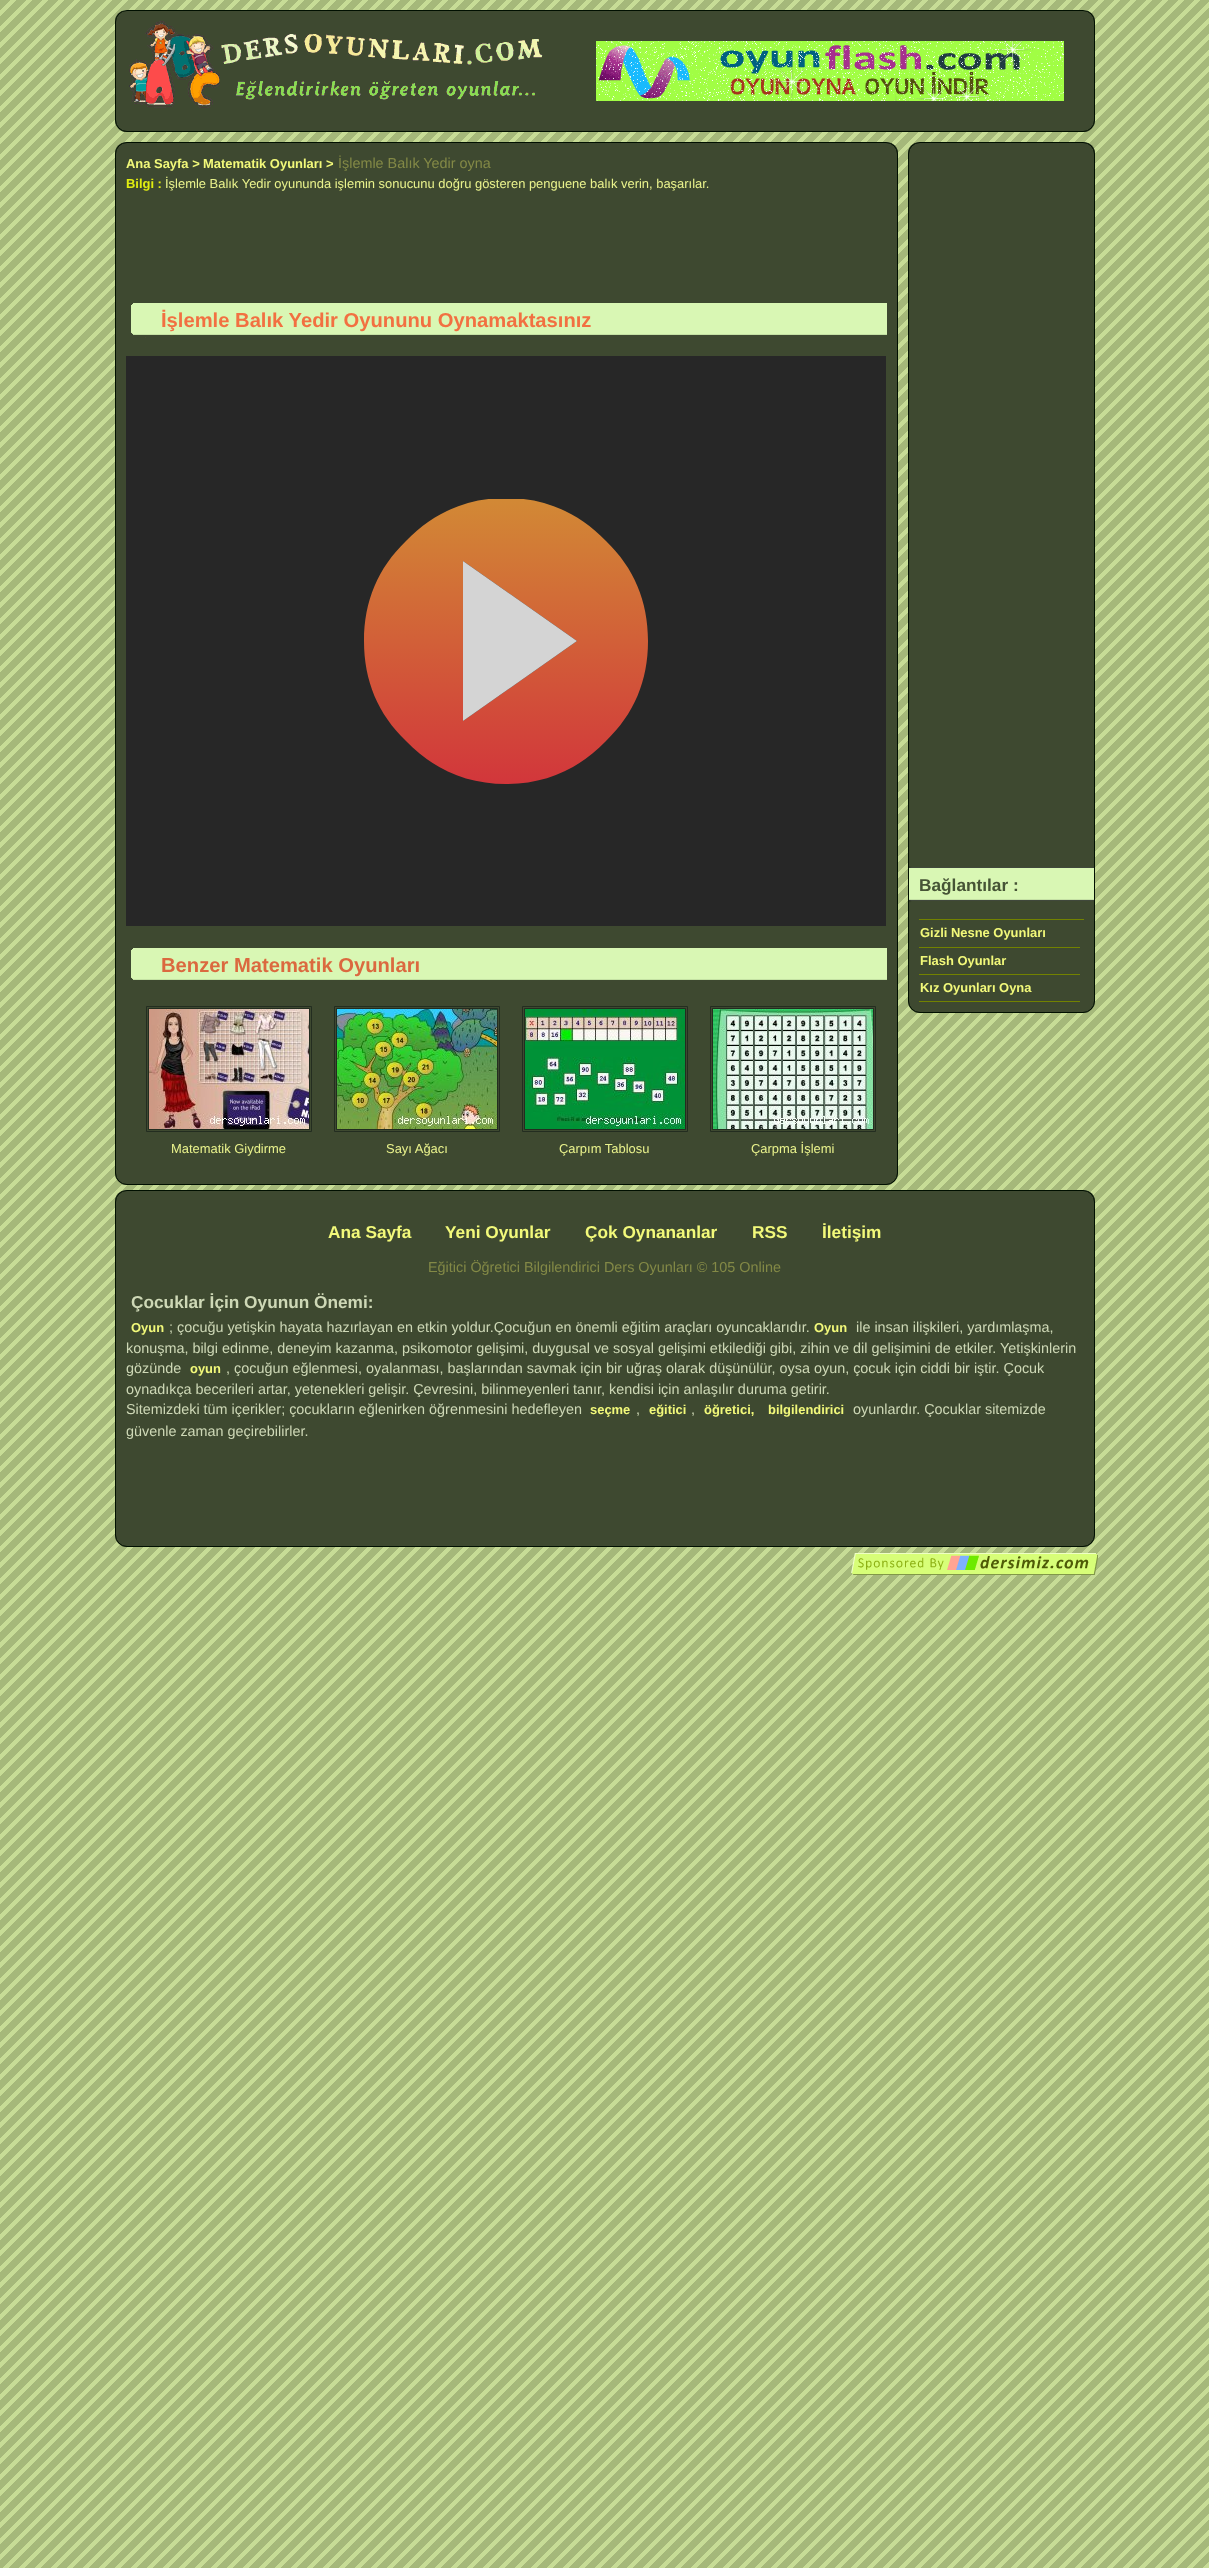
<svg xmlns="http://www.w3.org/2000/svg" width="1209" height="2568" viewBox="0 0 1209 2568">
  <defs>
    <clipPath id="clip1"><path d="M316 499h380v285H316z"/></clipPath>
    <linearGradient id="g1" gradientUnits="userSpaceOnUse" x1="506" y1="499" x2="506" y2="784"><stop offset="0" stop-color="#d28935"/><stop offset="1" stop-color="#d2363b"/></linearGradient>
  </defs>
  <rect width="100%" height="100%" fill="#fff"/>
  <image x="0" y="0" width="1209" height="2568" href="img/1.png"/>
  <image x="115" y="10" width="980" height="122" href="img/2.png"/>
  <rect x="115.5" y="10.5" width="979" height="121" rx="11.5" fill="none" stroke="#000f00"/>
  <image x="129" y="21" width="414" height="87" href="img/3.png"/>
  <image x="596" y="41" width="468" height="60" href="img/4.png"/>
  <rect x="115" y="142" width="783" height="1043" rx="12" fill="#3e4930"/>
  <image x="115" y="142" width="783" height="12" href="img/5.png"/>
  <rect x="115.5" y="142.5" width="782" height="1042" rx="11.5" fill="none" stroke="#000f00"/>
  <image x="131" y="303" width="756" height="35" href="img/6.png"/>
  <path d="M126 356h760v570H126z" fill="#272727"/>
  <g clip-path="url(#clip1)">
    <path d="M648 641C648 601 634 568 606 541C579 513 546 498 506 498C466 498 433 513 406 541C378 568 364 601 364 641C364 681 378 714 406 741C433 769 466 784 506 784C546 784 579 769 606 741C634 714 648 681 648 641M463 721V561L577 641Z" fill="url(#g1)"/>
  </g>
  <path d="M463 561V721L577 641Z" fill="#d4d4d4"/>
  <image x="131" y="948" width="756" height="32" href="img/7.png"/>
  <path d="M146.5 1006.5h165v125H146.5z" fill="none" stroke="#232d20"/>
  <path d="M148.5 1008.5h161v121H148.5z" fill="none" stroke="#232d20"/>
  <image x="149" y="1009" width="160" height="120" href="img/8.png"/>
  <path d="M334.5 1006.5h165v125H334.5z" fill="none" stroke="#232d20"/>
  <path d="M336.5 1008.5h161v121H336.5z" fill="none" stroke="#232d20"/>
  <image x="337" y="1009" width="160" height="120" href="img/9.png"/>
  <path d="M522.5 1006.5h165v125H522.5z" fill="none" stroke="#232d20"/>
  <path d="M524.5 1008.5h161v121H524.5z" fill="none" stroke="#232d20"/>
  <image x="525" y="1009" width="160" height="120" href="img/10.png"/>
  <path d="M710.5 1006.5h165v125H710.5z" fill="none" stroke="#232d20"/>
  <path d="M712.5 1008.5h161v121H712.5z" fill="none" stroke="#232d20"/>
  <image x="713" y="1009" width="160" height="120" href="img/11.png"/>
  <rect x="908" y="142" width="187" height="871" rx="12" fill="#3e4930"/>
  <image x="908" y="142" width="187" height="12" href="img/12.png"/>
  <rect x="908.5" y="142.5" width="186" height="870" rx="11.5" fill="none" stroke="#000f00"/>
  <image x="909" y="866" width="185" height="37" href="img/13.png"/>
  <path d="M919 919h165v1H919z" fill="#728200"/>
  <path d="M919 947h161v1H919z" fill="#728200"/>
  <path d="M919 974h161v1H919z" fill="#728200"/>
  <path d="M919 1001h161v1H919z" fill="#728200"/>
  <rect x="115" y="1190" width="980" height="357" rx="12" fill="#3e4930"/>
  <image x="115" y="1190" width="980" height="12" href="img/14.png"/>
  <rect x="115.5" y="1190.5" width="979" height="356" rx="11.5" fill="none" stroke="#000f00"/>
  <image x="851" y="1553" width="247" height="22" href="img/15.png"/>
  <g font-family="Liberation Sans" font-size="12.95" font-weight="bold" fill="#f2f97a">
    <text x="126" y="168">Ana Sayfa &gt;</text>
    <text x="203" y="168">Matematik Oyunları &gt;</text>
  </g>
  <text x="338" y="168" font-family="Liberation Sans" font-size="14.4" fill="#838946">İşlemle Balık Yedir oyna</text>
  <text x="126" y="188" font-family="Liberation Sans" font-size="12.95" font-weight="bold" fill="#e1ed10">Bilgi :</text>
  <text x="165" y="188" font-family="Liberation Sans" font-size="12.95" fill="#e9f28c">İşlemle Balık Yedir oyununda işlemin sonucunu doğru gösteren penguene balık verin, başarılar.</text>
  <text x="161" y="327" font-family="Liberation Sans" font-size="20.2" font-weight="bold" fill="#f27041">İşlemle Balık Yedir Oyununu Oynamaktasınız</text>
  <text x="161" y="972" font-family="Liberation Sans" font-size="20.2" font-weight="bold" fill="#db693f">Benzer Matematik Oyunları</text>
  <g font-family="Liberation Sans" font-size="12.95" fill="#e9f28c">
    <text x="171" y="1153">Matematik Giydirme</text>
    <text x="386" y="1153">Sayı Ağacı</text>
    <text x="559" y="1153">Çarpım Tablosu</text>
    <text x="751" y="1153">Çarpma İşlemi</text>
  </g>
  <text x="919" y="891" font-family="Liberation Sans" font-size="17.25" font-weight="bold" fill="#465436">Bağlantılar :</text>
  <g font-family="Liberation Sans" font-size="12.95" font-weight="bold" fill="#f2f97a">
    <text x="920" y="937">Gizli Nesne Oyunları</text>
    <text x="920" y="965">Flash Oyunlar</text>
    <text x="920" y="992">Kız Oyunları Oyna</text>
  </g>
  <g font-family="Liberation Sans" font-size="17.25" font-weight="bold" fill="#f2f97a">
    <text x="328" y="1238">Ana Sayfa</text>
    <text x="445" y="1238">Yeni Oyunlar</text>
    <text x="585" y="1238">Çok Oynananlar</text>
    <text x="752" y="1238">RSS</text>
    <text x="822" y="1238">İletişim</text>
  </g>
  <text x="428" y="1272" font-family="Liberation Sans" font-size="14.4" fill="#838946">Eğitici Öğretici Bilgilendirici Ders Oyunları © 105 Online</text>
  <text x="131" y="1308" font-family="Liberation Sans" font-size="17.25" font-weight="bold" fill="#ced8b6">Çocuklar İçin Oyunun Önemi:</text>
  <text x="131" y="1332" font-family="Liberation Sans" font-size="12.95" font-weight="bold" fill="#f2f97a">Oyun</text>
  <text x="169" y="1332" font-family="Liberation Sans" font-size="14.4" fill="#ced8b6">; çocuğu yetişkin hayata hazırlayan en etkin yoldur.Çocuğun en önemli eğitim araçları oyuncaklarıdır.</text>
  <text x="814" y="1332" font-family="Liberation Sans" font-size="12.95" font-weight="bold" fill="#f2f97a">Oyun</text>
  <g font-family="Liberation Sans" font-size="14.4" fill="#ced8b6">
    <text x="856" y="1332">ile insan ilişkileri, yardımlaşma,</text>
    <text x="126" y="1353">konuşma, bilgi edinme, deneyim kazanma, psikomotor gelişimi, duygusal ve sosyal gelişimi etkilediği gibi, zihin ve dil gelişimini de etkiler. Yetişkinlerin</text>
    <text x="126" y="1373">gözünde</text>
  </g>
  <text x="190" y="1373" font-family="Liberation Sans" font-size="12.95" font-weight="bold" fill="#f2f97a">oyun</text>
  <g font-family="Liberation Sans" font-size="14.4" fill="#ced8b6">
    <text x="226" y="1373">, çocuğun eğlenmesi, oyalanması, başlarından savmak için bir uğraş olarak düşünülür, oysa oyun, çocuk için ciddi bir iştir. Çocuk</text>
    <text x="126" y="1394">oynadıkça becerileri artar, yetenekleri gelişir. Çevresini, bilinmeyenleri tanır, kendisi için anlaşılır duruma getirir.</text>
    <text x="126" y="1414">Sitemizdeki tüm içerikler; çocukların eğlenirken öğrenmesini hedefleyen</text>
  </g>
  <text x="590" y="1414" font-family="Liberation Sans" font-size="12.95" font-weight="bold" fill="#f2f97a">seçme</text>
  <text x="636" y="1414" font-family="Liberation Sans" font-size="14.4" fill="#ced8b6">,</text>
  <text x="649" y="1414" font-family="Liberation Sans" font-size="12.95" font-weight="bold" fill="#f2f97a">eğitici</text>
  <text x="691" y="1414" font-family="Liberation Sans" font-size="14.4" fill="#ced8b6">,</text>
  <g font-family="Liberation Sans" font-size="12.95" font-weight="bold" fill="#f2f97a">
    <text x="704" y="1414">öğretici,</text>
    <text x="768" y="1414">bilgilendirici</text>
  </g>
  <g font-family="Liberation Sans" font-size="14.4" fill="#ced8b6">
    <text x="853" y="1414">oyunlardır. Çocuklar sitemizde</text>
    <text x="126" y="1436">güvenle zaman geçirebilirler.</text>
  </g>
</svg>
